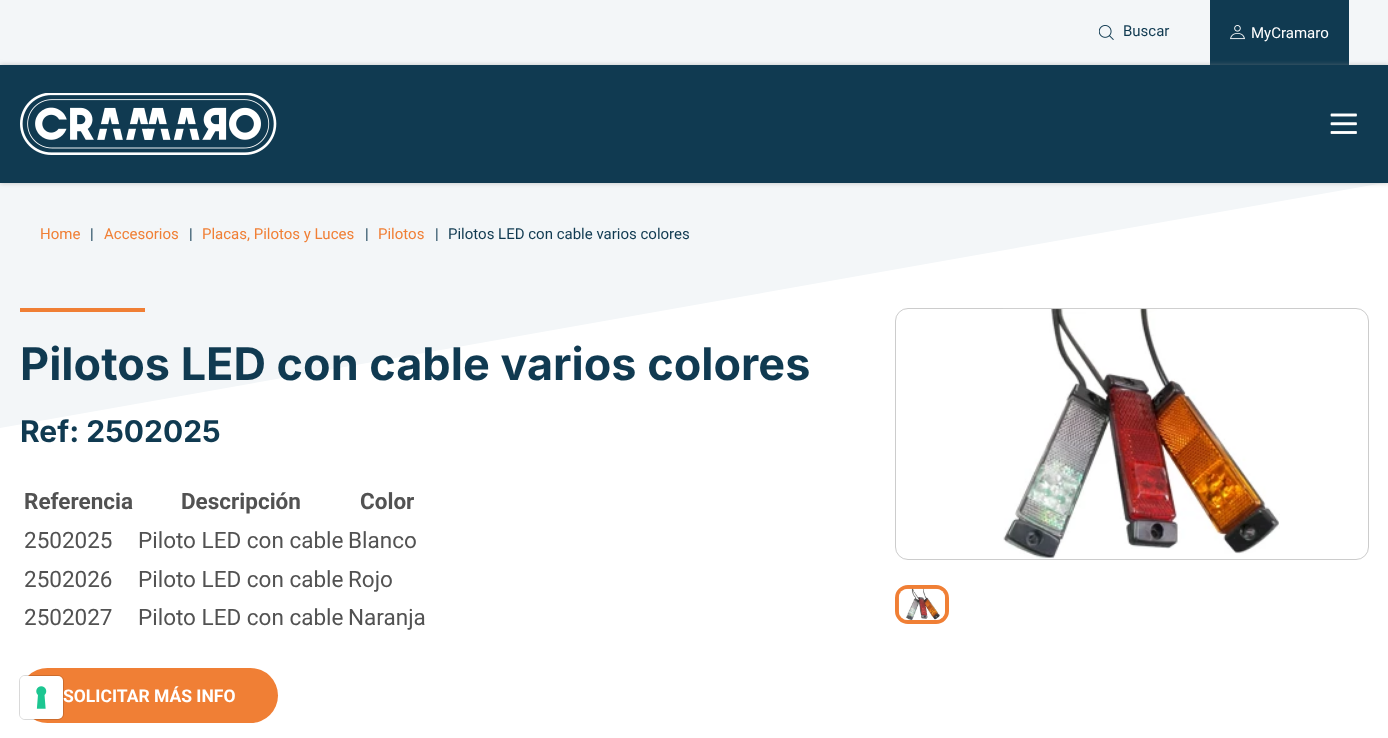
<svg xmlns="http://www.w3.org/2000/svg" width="1388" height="738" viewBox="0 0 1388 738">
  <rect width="100%" height="100%" fill="#fff"/>
  <path d="M0 0h1388v65H0z" fill="#f3f6f8"/>
  <image x="1099" y="25" width="15" height="15" href="img/1.png"/>
  <path d="M1210 0h139v65H1210z" fill="#103a51"/>
  <image x="1230" y="25" width="15" height="15" href="img/2.png"/>
  <path d="M0 182H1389L0 428Z" fill="#f3f6f8"/>
  <path d="M0 65h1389v118H0z" fill="#8e8e8e80" filter="blur(2.5px)"/>
  <path d="M0 65h1388v118H0z" fill="#103a51"/>
  <image x="20" y="93" width="257" height="62" href="img/3.png"/>
  <image x="1330" y="113" width="27" height="21" href="img/4.png"/>
  <path d="M20 308h125v4H20z" fill="#f07f35"/>
  <rect x="20" y="668" width="258" height="55" rx="27.5" fill="#f07f35"/>
  <rect x="895.5" y="308.5" width="473" height="251" rx="12.5" fill="none" stroke="#ccc"/>
  <image x="1003" y="308" width="277" height="251" href="img/5.png"/>
  <rect x="897" y="587" width="50" height="35" rx="11" fill="none" stroke="#f07f35" stroke-width="4"/>
  <image x="898" y="588" width="47" height="32" href="img/6.png"/>
  <text x="1123" y="36" font-family="Roboto" font-size="15" fill="#103a51">Buscar</text>
  <text x="1251" y="38" font-family="Roboto" font-size="15" fill="#fff">MyCramaro</text>
  <text x="40" y="239" font-family="Roboto" font-size="15" fill="#f07f35">Home</text>
  <text x="90" y="239" font-family="Roboto" font-size="15" fill="#103a51">|</text>
  <text x="104" y="239" font-family="Roboto" font-size="15" fill="#f07f35">Accesorios</text>
  <text x="189" y="239" font-family="Roboto" font-size="15" fill="#103a51">|</text>
  <text x="202" y="239" font-family="Roboto" font-size="15" fill="#f07f35">Placas, Pilotos y Luces</text>
  <text x="365" y="239" font-family="Roboto" font-size="15" fill="#103a51">|</text>
  <text x="378" y="239" font-family="Roboto" font-size="15" fill="#f07f35">Pilotos</text>
  <g font-family="Roboto" font-size="15" fill="#103a51">
    <text x="435" y="239">|</text>
    <text x="448" y="239">Pilotos LED con cable varios colores</text>
  </g>
  <text x="20" y="380" font-family="Inter" font-size="45" font-weight="bold" fill="#103a51">Pilotos LED con cable varios colores</text>
  <text x="20" y="442" font-family="Inter" font-size="30" font-weight="bold" fill="#103a51">Ref: 2502025</text>
  <g font-family="Roboto" font-size="22.5" font-weight="bold" fill="#525252">
    <text x="24" y="509">Referencia</text>
    <text x="181" y="509">Descripción</text>
    <text x="360" y="509">Color</text>
  </g>
  <g font-family="Roboto" font-size="22.5" fill="#525252">
    <text x="24" y="548">2502025</text>
    <text x="138" y="548">Piloto LED con cable</text>
    <text x="348" y="548">Blanco</text>
    <text x="24" y="587">2502026</text>
    <text x="138" y="587">Piloto LED con cable</text>
    <text x="348" y="587">Rojo</text>
    <text x="24" y="625">2502027</text>
    <text x="138" y="625">Piloto LED con cable</text>
    <text x="348" y="625">Naranja</text>
  </g>
  <text x="63" y="702" font-family="Roboto" font-size="17.5" font-weight="bold" fill="#fff">SOLICITAR MÁS INFO</text>
  <rect x="19.5" y="675.5" width="44" height="44" rx="5.5" fill="none" stroke="#00000026"/>
  <rect x="20" y="676" width="43" height="43" rx="5" fill="#fff"/>
  <image x="36" y="686" width="11" height="23" href="img/7.png"/>
</svg>
